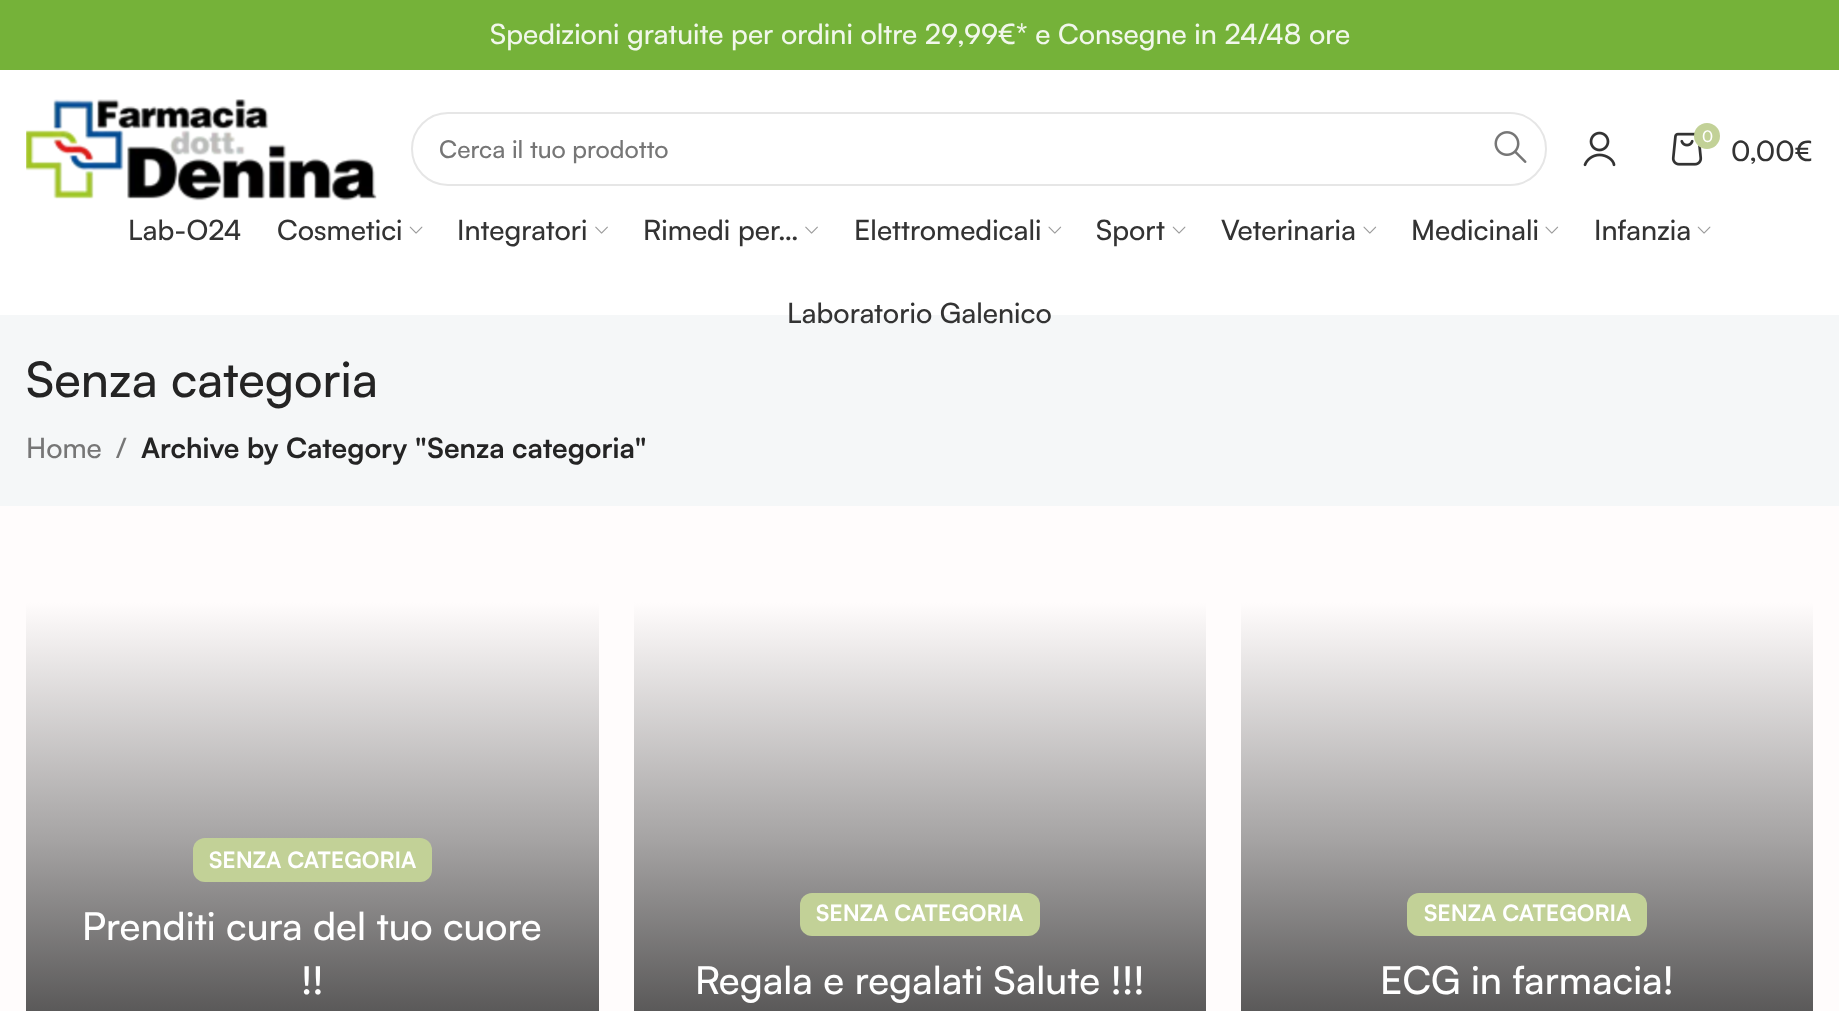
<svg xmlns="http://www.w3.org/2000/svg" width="1839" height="1011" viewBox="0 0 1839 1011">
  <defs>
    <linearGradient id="g1" gradientUnits="userSpaceOnUse" x1="312" y1="576" x2="312" y2="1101"><stop offset="0.05" stop-color="#fffcfc"/><stop offset="0.5" stop-color="#a6a4a4"/><stop offset="1" stop-color="#333232"/></linearGradient>
    <linearGradient id="g2" gradientUnits="userSpaceOnUse" x1="920" y1="576" x2="920" y2="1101"><stop offset="0.05" stop-color="#fffcfc"/><stop offset="0.5" stop-color="#a6a4a4"/><stop offset="1" stop-color="#333232"/></linearGradient>
    <linearGradient id="g3" gradientUnits="userSpaceOnUse" x1="1527" y1="576" x2="1527" y2="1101"><stop offset="0.05" stop-color="#fffcfc"/><stop offset="0.5" stop-color="#a6a4a4"/><stop offset="1" stop-color="#333232"/></linearGradient>
  </defs>
  <rect width="100%" height="100%" fill="#fff"/>
  <path d="M0 0h1839v70H0z" fill="#75b239"/>
  <image x="26" y="99" width="351" height="102" href="img/1.png"/>
  <rect x="412" y="113" width="1134" height="72" rx="36" fill="none" stroke="#e6e6e6" stroke-width="2"/>
  <image x="1494" y="131" width="33" height="32" href="img/2.png"/>
  <image x="1583" y="131" width="33" height="36" href="img/3.png"/>
  <image x="1671" y="132" width="32" height="34" href="img/4.png"/>
  <circle cx="1707" cy="136" r="13" fill="#c2d197"/>
  <image x="409" y="226" width="14" height="8" href="img/5.png"/>
  <image x="595" y="226" width="13" height="8" href="img/6.png"/>
  <image x="805" y="226" width="13" height="8" href="img/6.png"/>
  <image x="1048" y="226" width="14" height="8" href="img/7.png"/>
  <image x="1172" y="226" width="14" height="8" href="img/5.png"/>
  <image x="1363" y="226" width="14" height="8" href="img/7.png"/>
  <image x="1545" y="226" width="14" height="8" href="img/7.png"/>
  <image x="1697" y="226" width="14" height="8" href="img/5.png"/>
  <path d="M0 506h1839v505H0z" fill="#fffcfc"/>
  <path d="M0 315h1839v191H0z" fill="#f5f7f8"/>
  <rect x="26" y="576" width="573" height="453" rx="18" fill="url(#g1)"/>
  <rect x="193" y="838" width="239" height="44" rx="12" fill="#c2d197"/>
  <rect x="634" y="576" width="572" height="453" rx="18" fill="url(#g2)"/>
  <rect x="800" y="893" width="240" height="43" rx="12" fill="#c2d197"/>
  <rect x="1241" y="576" width="572" height="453" rx="18" fill="url(#g3)"/>
  <rect x="1407" y="893" width="240" height="43" rx="12" fill="#c2d197"/>
  <text x="490" y="44" font-family="Satoshi" font-size="28" font-weight="500" fill="#f1f7eb">Spedizioni gratuite per ordini oltre 29,99€* e Consegne in 24/48 ore</text>
  <text x="439" y="158" font-family="Satoshi" font-size="24.5" font-weight="500" fill="#767676">Cerca il tuo prodotto</text>
  <text x="1702" y="142" font-family="Satoshi" font-size="16" font-weight="500" fill="#fff">0</text>
  <g font-family="Satoshi" font-size="28" font-weight="500" fill="#333">
    <text x="1731" y="161">0,00€</text>
    <text x="128" y="240">Lab-O24</text>
    <text x="277" y="240">Cosmetici</text>
    <text x="457" y="240">Integratori</text>
    <text x="643" y="240">Rimedi per…</text>
    <text x="854" y="240">Elettromedicali</text>
    <text x="1096" y="240">Sport</text>
    <text x="1221" y="240">Veterinaria</text>
    <text x="1411" y="240">Medicinali</text>
    <text x="1594" y="240">Infanzia</text>
    <text x="787" y="323">Laboratorio Galenico</text>
  </g>
  <text x="26" y="397" font-family="Satoshi" font-size="49" font-weight="500" fill="#242424">Senza categoria</text>
  <g font-family="Satoshi" font-size="28" font-weight="500" fill="#767676">
    <text x="26" y="458">Home</text>
    <text x="116" y="458">/</text>
  </g>
  <text x="141" y="458" font-family="Satoshi" font-size="28" font-weight="bold" fill="#242424">Archive by Category "Senza categoria"</text>
  <text x="209" y="868" font-family="Satoshi" font-size="22.5" font-weight="bold" fill="#fff">SENZA CATEGORIA</text>
  <g font-family="Satoshi" font-size="38.5" font-weight="500" fill="#fff">
    <text x="82" y="940">Prenditi cura del tuo cuore</text>
    <text x="301" y="994">!!</text>
  </g>
  <text x="816" y="921" font-family="Satoshi" font-size="22.5" font-weight="bold" fill="#fff">SENZA CATEGORIA</text>
  <text x="695" y="994" font-family="Satoshi" font-size="38.5" font-weight="500" fill="#fff">Regala e regalati Salute !!!</text>
  <text x="1424" y="921" font-family="Satoshi" font-size="22.5" font-weight="bold" fill="#fff">SENZA CATEGORIA</text>
  <text x="1380" y="994" font-family="Satoshi" font-size="38.5" font-weight="500" fill="#fff">ECG in farmacia!</text>
</svg>
